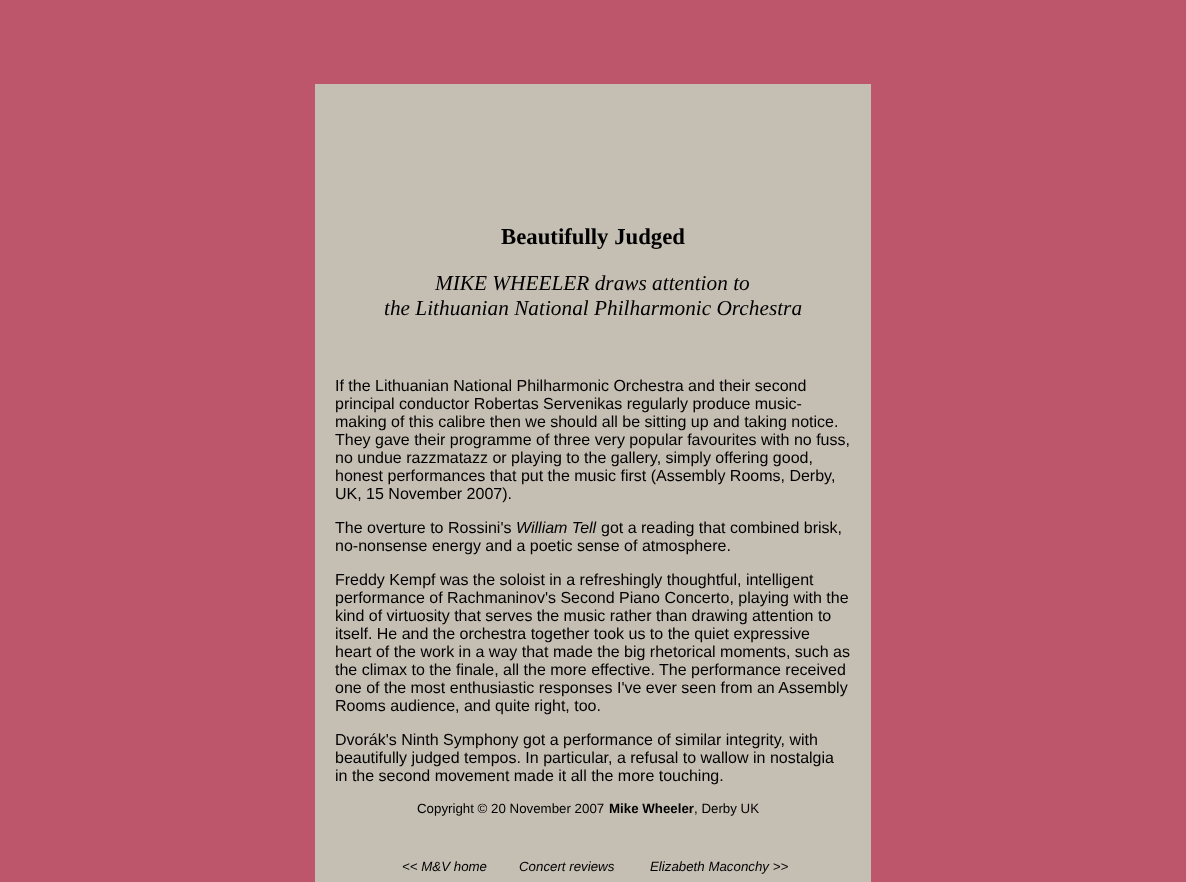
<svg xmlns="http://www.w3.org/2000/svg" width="1186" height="882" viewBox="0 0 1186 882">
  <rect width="100%" height="100%" fill="#bd556b"/>
  <path d="M315 84h556v798H315z" fill="#c5beb3"/>
  <text x="501" y="244" font-family="Liberation Serif" font-size="22.75" font-weight="bold" fill="#000">Beautifully Judged</text>
  <g font-family="Liberation Serif" font-size="21.3" font-style="italic" fill="#000">
    <text x="435" y="290">MIKE WHEELER draws attention to</text>
    <text x="384" y="315">the Lithuanian National Philharmonic Orchestra</text>
  </g>
  <g font-family="Liberation Sans" font-size="16" fill="#000">
    <text x="335" y="391">If the Lithuanian National Philharmonic Orchestra and their second</text>
    <text x="335" y="409">principal conductor Robertas Servenikas regularly produce music-</text>
    <text x="335" y="427">making of this calibre then we should all be sitting up and taking notice.</text>
    <text x="335" y="445">They gave their programme of three very popular favourites with no fuss,</text>
    <text x="335" y="463">no undue razzmatazz or playing to the gallery, simply offering good,</text>
    <text x="335" y="481">honest performances that put the music first (Assembly Rooms, Derby,</text>
    <text x="335" y="499">UK, 15 November 2007).</text>
    <text x="335" y="533">The overture to Rossini's</text>
  </g>
  <text x="516" y="533" font-family="Liberation Sans" font-size="16" font-style="italic" fill="#000">William Tell</text>
  <g font-family="Liberation Sans" font-size="16" fill="#000">
    <text x="601" y="533">got a reading that combined brisk,</text>
    <text x="335" y="551">no-nonsense energy and a poetic sense of atmosphere.</text>
    <text x="335" y="585">Freddy Kempf was the soloist in a refreshingly thoughtful, intelligent</text>
    <text x="335" y="603">performance of Rachmaninov's Second Piano Concerto, playing with the</text>
    <text x="335" y="621">kind of virtuosity that serves the music rather than drawing attention to</text>
    <text x="335" y="639">itself. He and the orchestra together took us to the quiet expressive</text>
    <text x="335" y="657">heart of the work in a way that made the big rhetorical moments, such as</text>
    <text x="335" y="675">the climax to the finale, all the more effective. The performance received</text>
    <text x="335" y="693">one of the most enthusiastic responses I've ever seen from an Assembly</text>
    <text x="335" y="711">Rooms audience, and quite right, too.</text>
    <text x="335" y="745">Dvorák's Ninth Symphony got a performance of similar integrity, with</text>
    <text x="335" y="763">beautifully judged tempos. In particular, a refusal to wallow in nostalgia</text>
    <text x="335" y="781">in the second movement made it all the more touching.</text>
  </g>
  <text x="417" y="813" font-family="Liberation Sans" font-size="13.3" fill="#000">Copyright © 20 November 2007</text>
  <text x="609" y="813" font-family="Liberation Sans" font-size="13.3" font-weight="bold" fill="#000">Mike Wheeler</text>
  <text x="694" y="813" font-family="Liberation Sans" font-size="13.3" fill="#000">, Derby UK</text>
  <g font-family="Liberation Sans" font-size="13.3" font-style="italic" fill="#000">
    <text x="402" y="871">&lt;&lt; M&amp;V home</text>
    <text x="519" y="871">Concert reviews</text>
    <text x="650" y="871">Elizabeth Maconchy &gt;&gt;</text>
  </g>
</svg>
